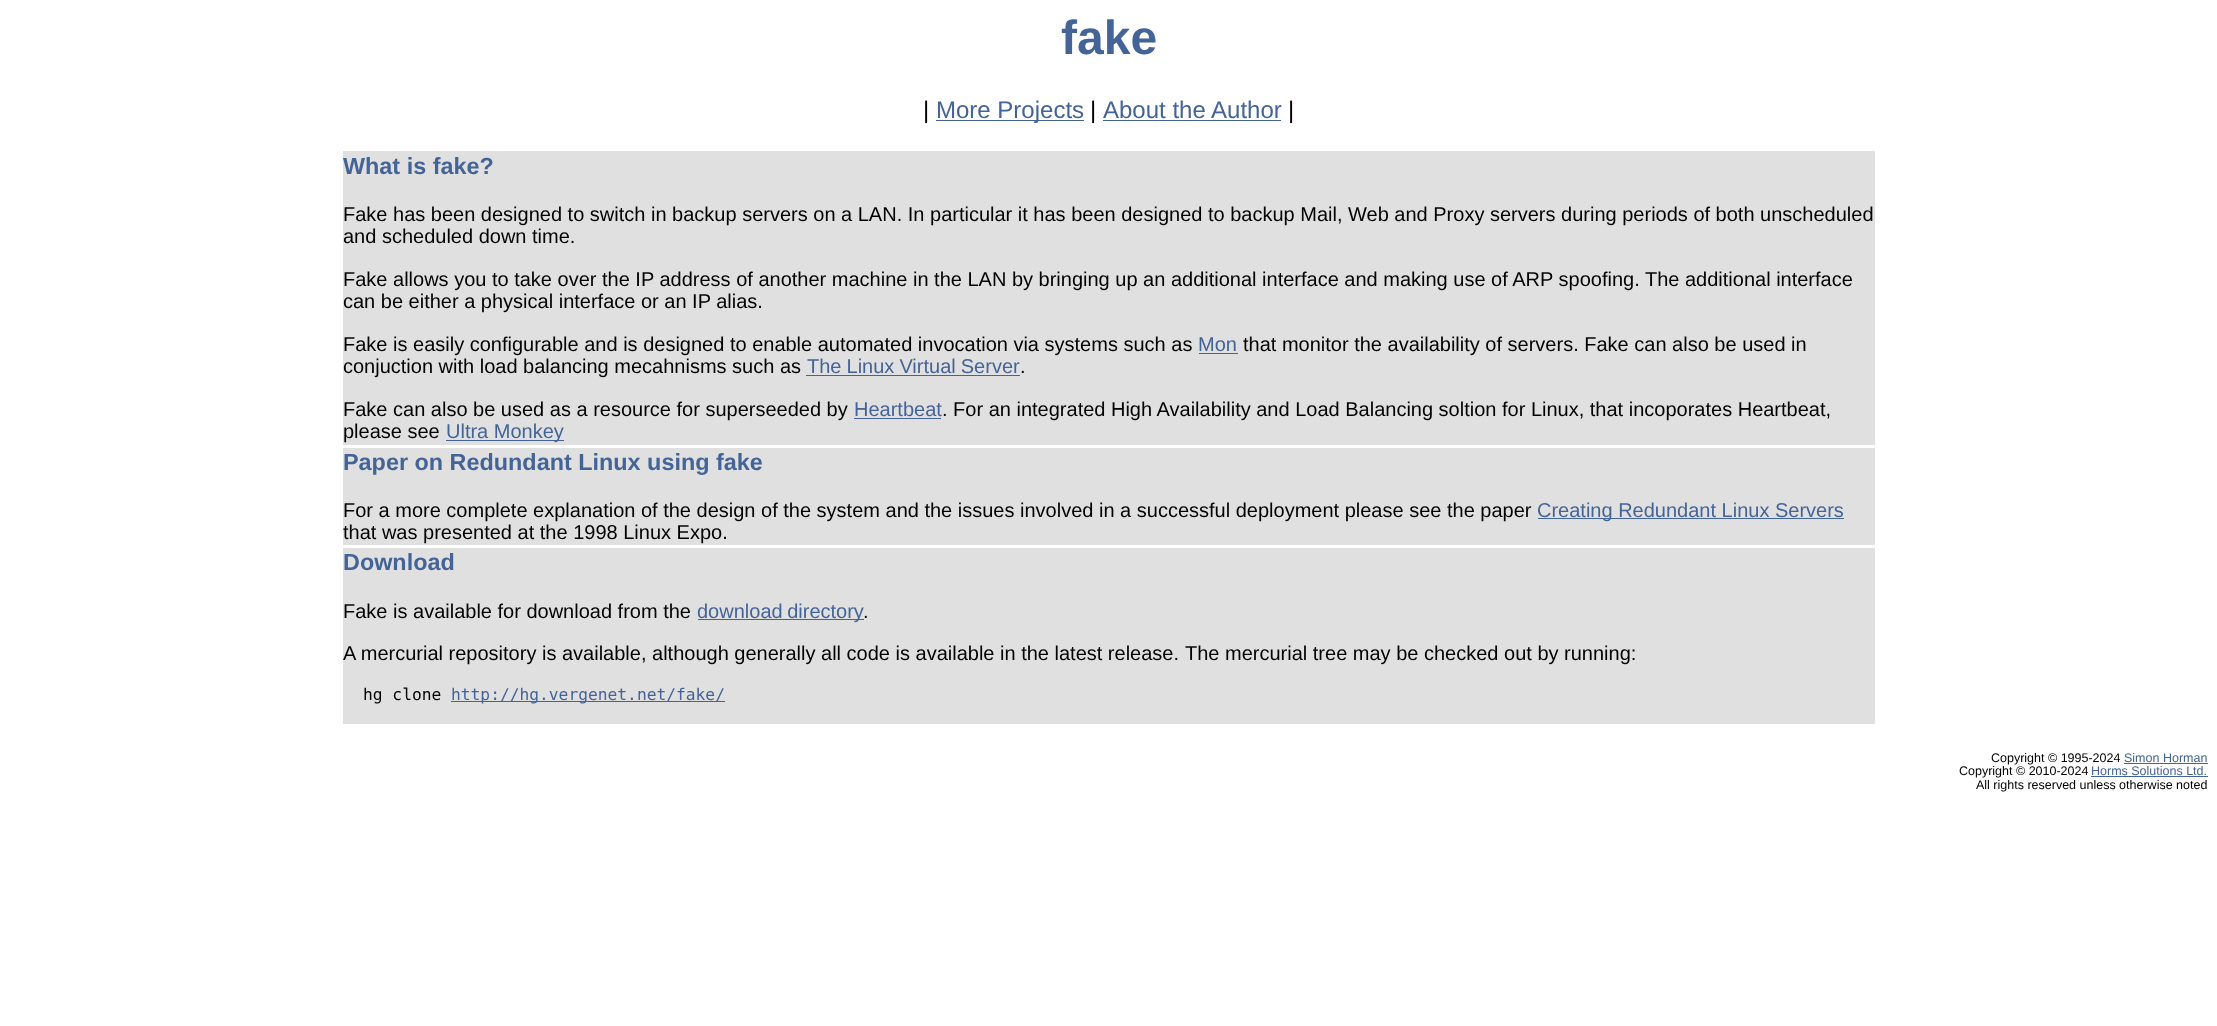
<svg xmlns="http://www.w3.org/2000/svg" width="2217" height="1026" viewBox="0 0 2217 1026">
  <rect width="100%" height="100%" fill="#fff"/>
  <path d="M936 120h148v1H936z" fill="#446498"/>
  <path d="M1103 120h178v1H1103z" fill="#446498"/>
  <path d="M343 151h1532v294H343z" fill="#e0e0e0"/>
  <path d="M1199 353h39v1H1199z" fill="#446498"/>
  <path d="M806 375h214v1H806z" fill="#446498"/>
  <path d="M854 418h87v1H854z" fill="#446498"/>
  <path d="M446 440h118v1H446z" fill="#446498"/>
  <path d="M343 448h1532v97H343z" fill="#e0e0e0"/>
  <path d="M1538 518h306v1H1538z" fill="#446498"/>
  <path d="M343 548h1532v176H343z" fill="#e0e0e0"/>
  <path d="M698 619h166v1H698z" fill="#446498"/>
  <path d="M451 701h274v1H451z" fill="#446498"/>
  <path d="M2124 763h84v1H2124z" fill="#446498"/>
  <path d="M2091 776h117v1H2091z" fill="#446498"/>
  <text x="1061" y="54" font-family="Liberation Sans" font-size="48" font-weight="bold" fill="#446498">fake</text>
  <text x="923" y="118" font-family="Liberation Sans" font-size="24" fill="#000">|</text>
  <text x="936" y="118" font-family="Liberation Sans" font-size="24" fill="#446498">More Projects</text>
  <text x="1090" y="118" font-family="Liberation Sans" font-size="24" fill="#000">|</text>
  <text x="1103" y="118" font-family="Liberation Sans" font-size="24" fill="#446498">About the Author</text>
  <text x="1288" y="118" font-family="Liberation Sans" font-size="24" fill="#000">|</text>
  <text x="343" y="174" font-family="Liberation Sans" font-size="23.4" font-weight="bold" fill="#446498">What is fake?</text>
  <g font-family="Liberation Sans" font-size="20" fill="#000">
    <text x="343" y="221">Fake has been designed to switch in backup servers on a LAN. In particular it has been designed to backup Mail, Web and Proxy servers during periods of both unscheduled</text>
    <text x="343" y="243">and scheduled down time.</text>
    <text x="343" y="286">Fake allows you to take over the IP address of another machine in the LAN by bringing up an additional interface and making use of ARP spoofing. The additional interface</text>
    <text x="343" y="308">can be either a physical interface or an IP alias.</text>
    <text x="343" y="351">Fake is easily configurable and is designed to enable automated invocation via systems such as</text>
  </g>
  <text x="1198" y="351" font-family="Liberation Sans" font-size="20" fill="#446498">Mon</text>
  <g font-family="Liberation Sans" font-size="20" fill="#000">
    <text x="1243" y="351">that monitor the availability of servers. Fake can also be used in</text>
    <text x="343" y="373">conjuction with load balancing mecahnisms such as</text>
  </g>
  <text x="807" y="373" word-spacing="-0.5" font-family="Liberation Sans" font-size="20" fill="#446498">The Linux Virtual Server</text>
  <g font-family="Liberation Sans" font-size="20" fill="#000">
    <text x="1020" y="373">.</text>
    <text x="343" y="416">Fake can also be used as a resource for superseeded by</text>
  </g>
  <text x="854" y="416" font-family="Liberation Sans" font-size="20" fill="#446498">Heartbeat</text>
  <g font-family="Liberation Sans" font-size="20" fill="#000">
    <text x="942" y="416">. For an integrated High Availability and Load Balancing soltion for Linux, that incoporates Heartbeat,</text>
    <text x="343" y="438">please see</text>
  </g>
  <text x="446" y="438" font-family="Liberation Sans" font-size="20" fill="#446498">Ultra Monkey</text>
  <text x="343" y="470" font-family="Liberation Sans" font-size="23.4" font-weight="bold" fill="#446498">Paper on Redundant Linux using fake</text>
  <text x="343" y="517" font-family="Liberation Sans" font-size="20" fill="#000">For a more complete explanation of the design of the system and the issues involved in a successful deployment please see the paper</text>
  <text x="1537" y="517" font-family="Liberation Sans" font-size="20" fill="#446498">Creating Redundant Linux Servers</text>
  <text x="343" y="539" font-family="Liberation Sans" font-size="20" fill="#000">that was presented at the 1998 Linux Expo.</text>
  <text x="343" y="570" font-family="Liberation Sans" font-size="23.4" font-weight="bold" fill="#446498">Download</text>
  <text x="343" y="618" font-family="Liberation Sans" font-size="20" fill="#000">Fake is available for download from the</text>
  <text x="697" y="618" word-spacing="-1" font-family="Liberation Sans" font-size="20" fill="#446498">download directory</text>
  <g font-family="Liberation Sans" font-size="20" fill="#000">
    <text x="863" y="618">.</text>
    <text x="343" y="660">A mercurial repository is available, although generally all code is available in the latest release.</text>
    <text x="1185" y="660">The mercurial tree may be checked out by running:</text>
  </g>
  <text x="363" y="700" font-family="DejaVu Sans Mono" font-size="16.25" fill="#000">hg clone</text>
  <text x="451" y="700" font-family="DejaVu Sans Mono" font-size="16.25" fill="#446498">http://hg.vergenet.net/fake/</text>
  <text x="1991" y="762" font-family="Liberation Sans" font-size="12.5" fill="#000">Copyright © 1995-2024</text>
  <text x="2124" y="762" font-family="Liberation Sans" font-size="12.5" fill="#446498">Simon Horman</text>
  <text x="1959" y="775" font-family="Liberation Sans" font-size="12.5" fill="#000">Copyright © 2010-2024</text>
  <text x="2091" y="775" font-family="Liberation Sans" font-size="12.5" fill="#446498">Horms Solutions Ltd.</text>
  <text x="1976" y="789" font-family="Liberation Sans" font-size="12.5" fill="#000">All rights reserved unless otherwise noted</text>
</svg>
